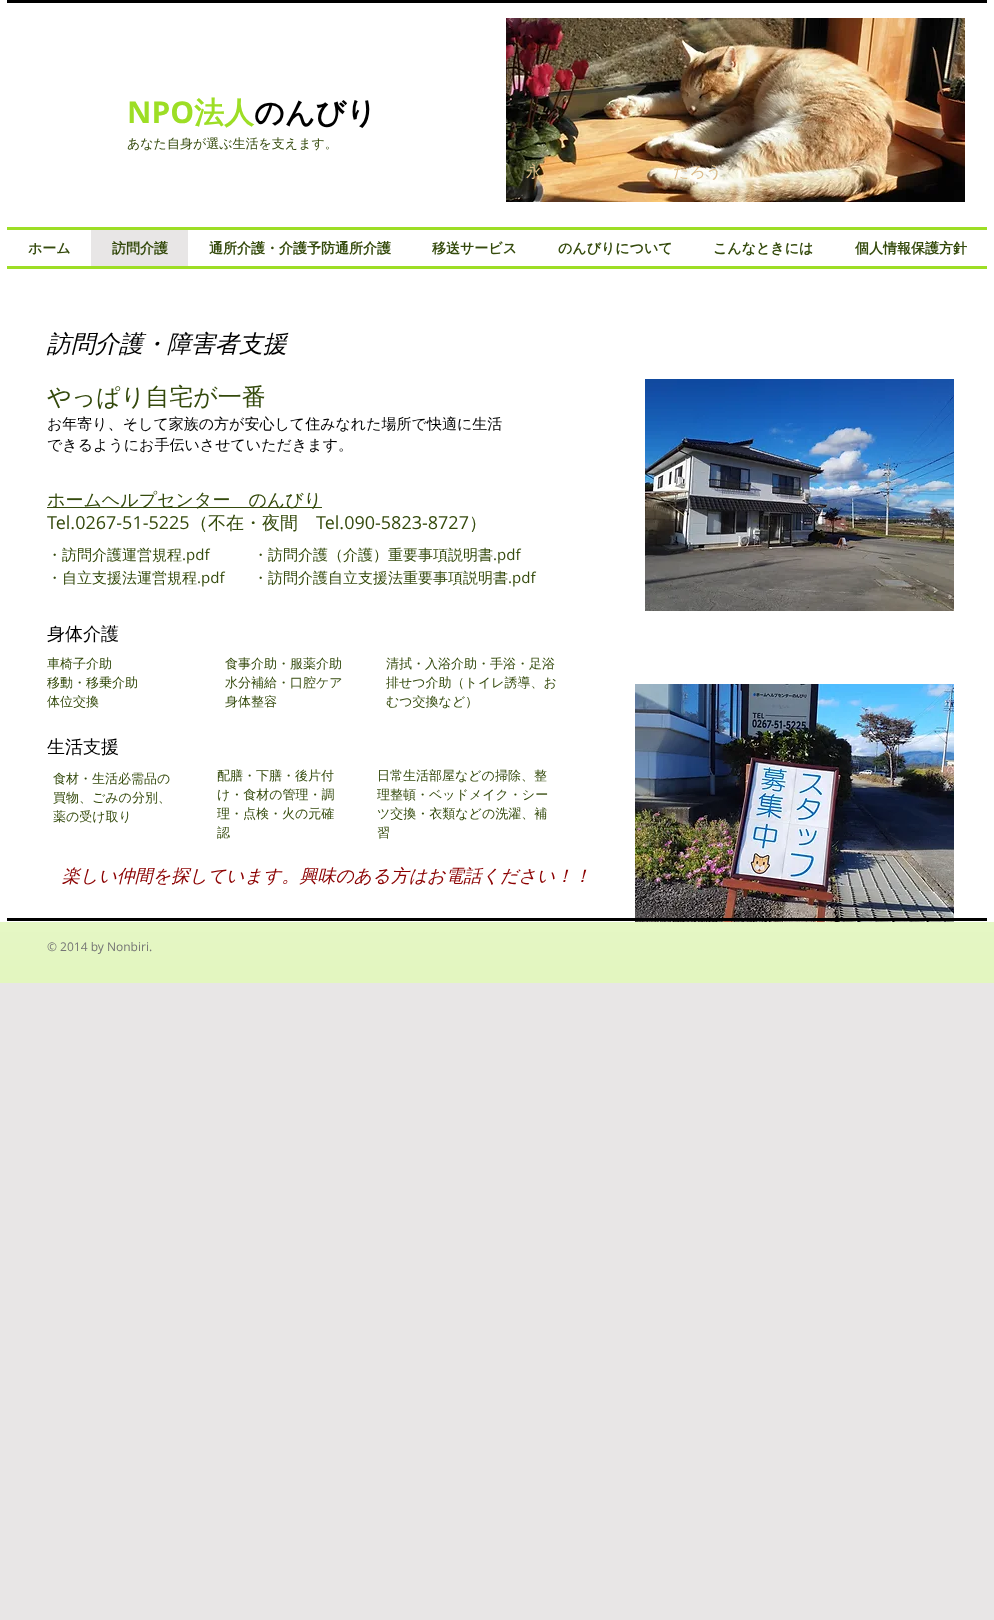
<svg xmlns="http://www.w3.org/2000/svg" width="994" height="1620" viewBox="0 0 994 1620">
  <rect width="100%" height="100%" fill="#e8e6e6"/>
  <path d="M0 0h994v922H0z" fill="#fff"/>
  <path d="M7 0h980v3H7z" fill="#000"/>
  <image x="506" y="18" width="459" height="184" href="img/1.png"/>
  <path d="M7 227h980v3H7z" fill="#9dde25"/>
  <path d="M7 266h980v3H7z" fill="#9dde25"/>
  <path d="M91 230h97v36H91z" fill="#e8e6e6"/>
  <image x="645" y="379" width="309" height="232" href="img/2.png"/>
  <path d="M47 507h275v1H47z" fill="#344a0c"/>
  <image x="635" y="684" width="319" height="238" href="img/3.png"/>
  <path d="M0 922h994v61H0z" fill="#dcf4b0"/>
  <image x="0" y="922" width="994" height="61" href="img/4.png"/>
  <path d="M7 918h980v3H7z" fill="#000"/>
  <text x="127" y="123" font-family="Open Sans" font-size="30" font-weight="bold" fill="#9dde25">NPO</text>
  <text x="194" y="123" font-family="WenQuanYi Zen Hei" font-size="30" font-weight="bold" fill="#9dde25">法人</text>
  <text x="254" y="123" font-family="WenQuanYi Zen Hei" font-size="30" font-weight="bold" fill="#000">のんびり</text>
  <text x="127" y="148" font-family="WenQuanYi Zen Hei" font-size="13" font-weight="500" fill="#344a0c">あなた自身が選ぶ生活を支えます。</text>
  <g font-family="WenQuanYi Zen Hei" font-size="16" font-weight="500" fill="#dbba88">
    <text x="526" y="177">永</text>
    <text x="673" y="177">たろう</text>
  </g>
  <g font-family="WenQuanYi Zen Hei" font-size="14" font-weight="bold" fill="#344a0c">
    <text x="28" y="253">ホーム</text>
    <text x="112" y="253">訪問介護</text>
    <text x="209" y="253">通所介護・介護予防通所介護</text>
    <text x="432" y="253">移送サービス</text>
    <text x="558" y="253">のんびりについて</text>
    <text x="713" y="253">こんなときには</text>
    <text x="855" y="253">個人情報保護方針</text>
  </g>
  <text x="47" y="352" font-family="WenQuanYi Zen Hei" font-size="24" font-weight="500" font-style="italic" fill="#000">訪問介護・障害者支援</text>
  <text x="47" y="405" font-family="WenQuanYi Zen Hei" font-size="24" font-weight="500" fill="#344a0c">やっぱり自宅が一番</text>
  <g font-family="WenQuanYi Zen Hei" font-size="15" font-weight="500" fill="#000">
    <text x="47" y="429">お年寄り、そして家族の方が安心して住みなれた場所で快適に生活</text>
    <text x="47" y="450">できるようにお手伝いさせていただきます。</text>
  </g>
  <text x="47" y="506" font-family="WenQuanYi Zen Hei" font-size="18" font-weight="500" fill="#344a0c">ホームヘルプセンター　のんびり</text>
  <text x="47" y="529" font-family="Open Sans" font-size="18" fill="#344a0c">Tel.0267-51-5225</text>
  <text x="190" y="529" font-family="WenQuanYi Zen Hei" font-size="18" font-weight="500" fill="#344a0c">（不在・夜間</text>
  <text x="316" y="529" font-family="Open Sans" font-size="18" fill="#344a0c">Tel.090-5823-8727</text>
  <text x="469" y="529" font-family="WenQuanYi Zen Hei" font-size="18" font-weight="500" fill="#344a0c">）</text>
  <text x="47" y="560" font-family="WenQuanYi Zen Hei" font-size="15" font-weight="500" fill="#344a0c">・訪問介護運営規程</text>
  <text x="182" y="560" font-family="Open Sans" font-size="15" fill="#344a0c">.pdf</text>
  <text x="253" y="560" font-family="WenQuanYi Zen Hei" font-size="15" font-weight="500" fill="#344a0c">・訪問介護（介護）重要事項説明書</text>
  <text x="493" y="560" font-family="Open Sans" font-size="15" fill="#344a0c">.pdf</text>
  <text x="47" y="583" font-family="WenQuanYi Zen Hei" font-size="15" font-weight="500" fill="#344a0c">・自立支援法運営規程</text>
  <text x="197" y="583" font-family="Open Sans" font-size="15" fill="#344a0c">.pdf</text>
  <text x="253" y="583" font-family="WenQuanYi Zen Hei" font-size="15" font-weight="500" fill="#344a0c">・訪問介護自立支援法重要事項説明書</text>
  <text x="508" y="583" font-family="Open Sans" font-size="15" fill="#344a0c">.pdf</text>
  <text x="47" y="640" font-family="WenQuanYi Zen Hei" font-size="18" font-weight="500" fill="#000">身体介護</text>
  <g font-family="WenQuanYi Zen Hei" font-size="13" font-weight="500" fill="#344a0c">
    <text x="47" y="668">車椅子介助</text>
    <text x="47" y="687">移動・移乗介助</text>
    <text x="47" y="706">体位交換</text>
    <text x="225" y="668">食事介助・服薬介助</text>
    <text x="225" y="687">水分補給・口腔ケア</text>
    <text x="225" y="706">身体整容</text>
    <text x="386" y="668">清拭・入浴介助・手浴・足浴</text>
    <text x="386" y="687">排せつ介助（トイレ誘導、お</text>
    <text x="386" y="706">むつ交換など）</text>
  </g>
  <text x="47" y="753" font-family="WenQuanYi Zen Hei" font-size="18" font-weight="500" fill="#000">生活支援</text>
  <g font-family="WenQuanYi Zen Hei" font-size="13" font-weight="500" fill="#344a0c">
    <text x="53" y="783">食材・生活必需品の</text>
    <text x="53" y="802">買物、ごみの分別、</text>
    <text x="53" y="821">薬の受け取り</text>
    <text x="217" y="780">配膳・下膳・後片付</text>
    <text x="217" y="799">け・食材の管理・調</text>
    <text x="217" y="818">理・点検・火の元確</text>
    <text x="217" y="837">認</text>
    <text x="377" y="780">日常生活部屋などの掃除、整</text>
    <text x="377" y="799">理整頓・ベッドメイク・シー</text>
    <text x="377" y="818">ツ交換・衣類などの洗濯、補</text>
    <text x="377" y="837">習</text>
  </g>
  <text x="62" y="882" font-family="WenQuanYi Zen Hei" font-size="18" font-weight="500" font-style="italic" fill="#8b0000">楽しい仲間を探しています。興味のある方はお電話ください！！</text>
  <text x="47" y="951" font-family="Open Sans" font-size="12" fill="#757575">© 2014 by Nonbiri.</text>
</svg>
